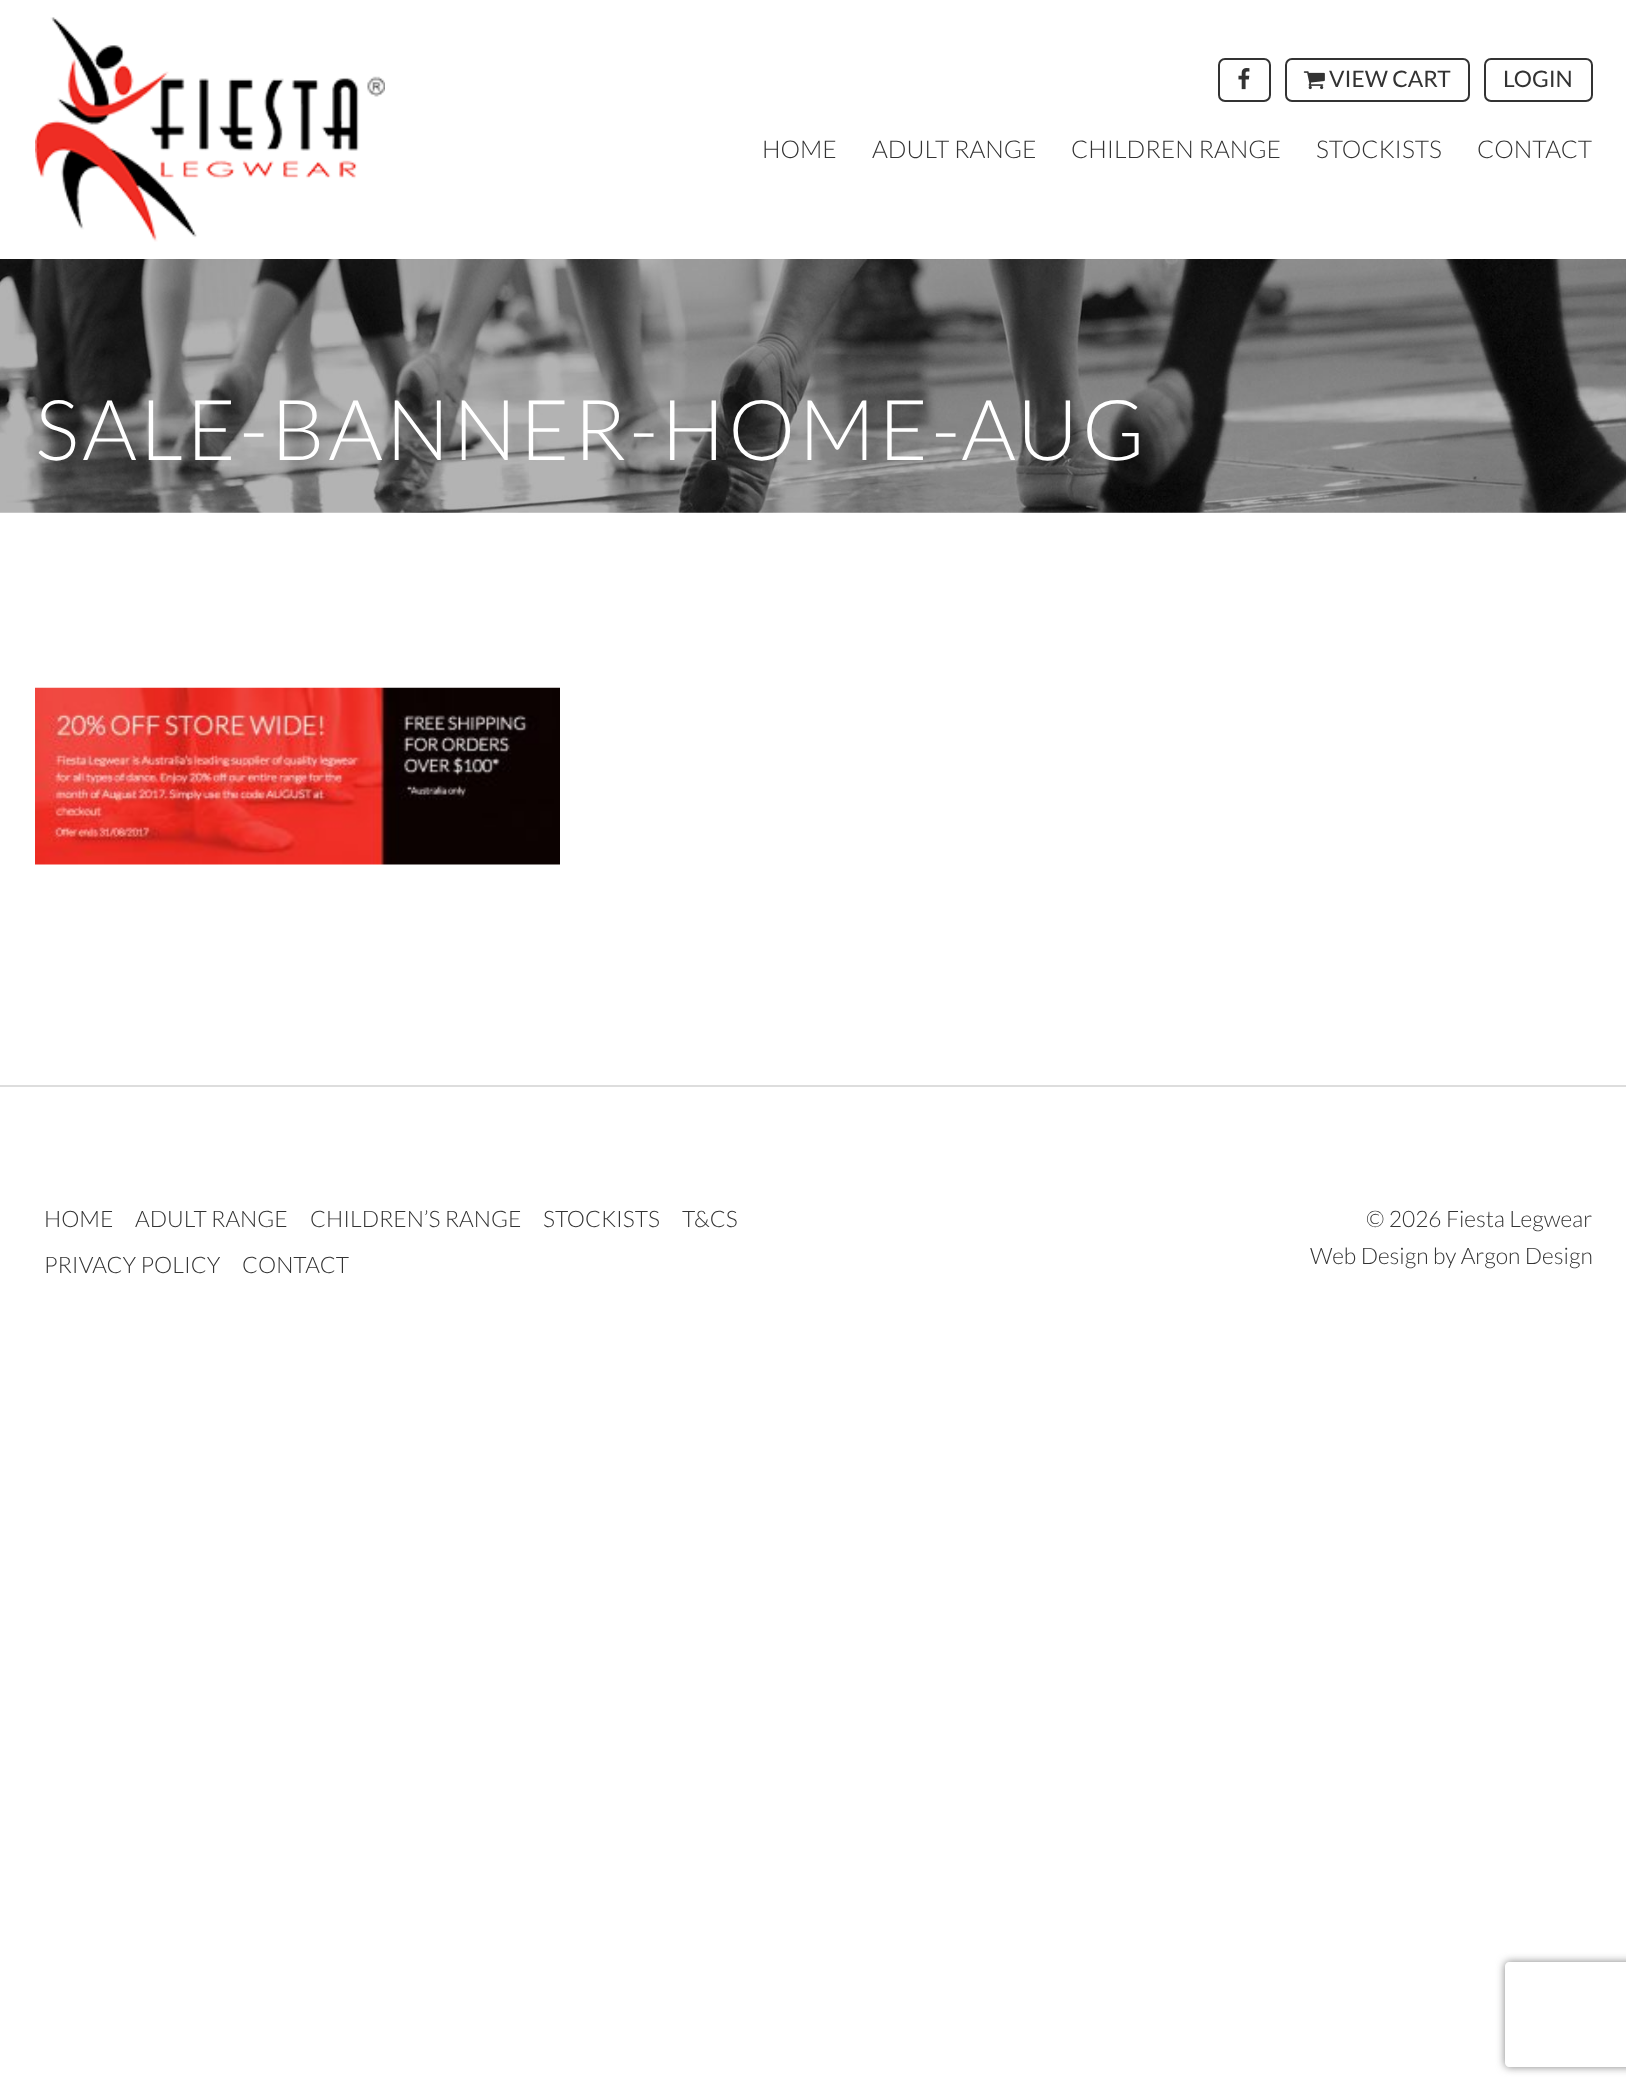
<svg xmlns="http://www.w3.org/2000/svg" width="1626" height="2090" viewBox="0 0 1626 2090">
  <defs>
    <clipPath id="clip1"><path d="M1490 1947H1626V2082H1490ZM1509 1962H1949C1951 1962 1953 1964 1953 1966V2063C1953 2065 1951 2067 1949 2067H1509C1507 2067 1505 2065 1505 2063V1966C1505 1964 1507 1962 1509 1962Z" clip-rule="evenodd"/></clipPath>
  </defs>
  <rect width="100%" height="100%" fill="#fff"/>
  <image x="35" y="17" width="350" height="225" href="img/1.png"/>
  <rect x="1219" y="59" width="51" height="42" rx="6" fill="none" stroke="#333" stroke-width="2"/>
  <image x="1238" y="68" width="12" height="22" href="img/2.png"/>
  <rect x="1286" y="59" width="183" height="42" rx="6" fill="none" stroke="#333" stroke-width="2"/>
  <image x="1303" y="71" width="22" height="19" href="img/3.png"/>
  <rect x="1485" y="59" width="107" height="42" rx="6" fill="none" stroke="#333" stroke-width="2"/>
  <image x="0" y="259" width="1626" height="254" href="img/4.png"/>
  <image x="35" y="687" width="525" height="178" href="img/5.png"/>
  <path d="M0 1085h1626v2H0z" fill="#ddd"/>
  <g clip-path="url(#clip1)">
    <rect x="1505" y="1962" width="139" height="105" rx="4" fill="#808080" filter="blur(4.5px)"/>
  </g>
  <g font-family="Lato" font-size="22.75" fill="#333">
    <text x="1329" y="87">VIEW CART</text>
    <text x="1503" y="87">LOGIN</text>
  </g>
  <g font-family="Lato" font-size="24.5" font-weight="300" fill="#333">
    <text x="762" y="158">HOME</text>
    <text x="872" y="158">ADULT RANGE</text>
    <text x="1071" y="158">CHILDREN RANGE</text>
    <text x="1316" y="158">STOCKISTS</text>
    <text x="1477" y="158">CONTACT</text>
  </g>
  <text x="35" y="460" font-family="Lato" font-size="84" font-weight="300" letter-spacing="3.5" fill="#fff">SALE-BANNER-HOME-AUG</text>
  <g font-family="Lato" font-size="22.75" font-weight="300" fill="#333">
    <text x="44" y="1227">HOME</text>
    <text x="135" y="1227">ADULT RANGE</text>
    <text x="310" y="1227">CHILDREN’S RANGE</text>
    <text x="543" y="1227">STOCKISTS</text>
    <text x="682" y="1227">T&amp;CS</text>
    <text x="44" y="1273">PRIVACY POLICY</text>
    <text x="242" y="1273">CONTACT</text>
    <text x="1366" y="1227">© 2026 Fiesta Legwear</text>
    <text x="1310" y="1264">Web Design by Argon Design</text>
  </g>
</svg>
